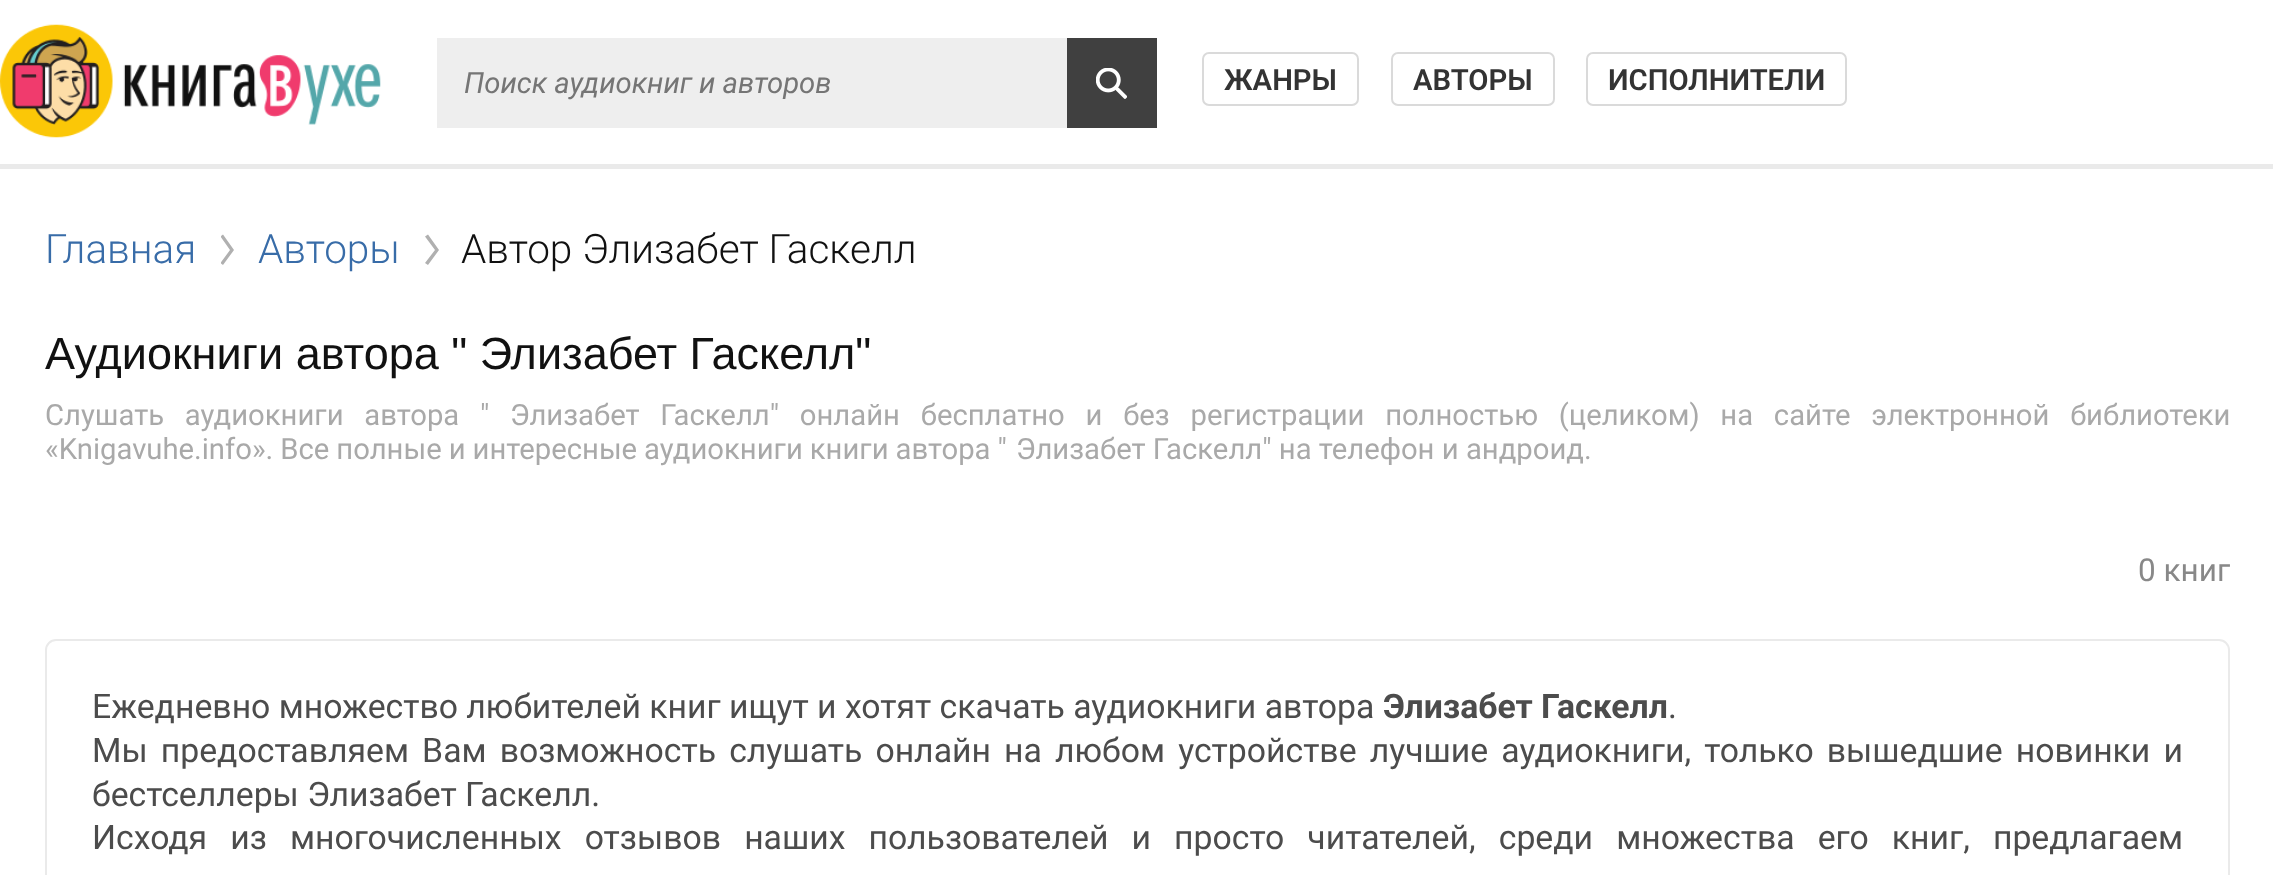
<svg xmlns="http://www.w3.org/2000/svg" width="2273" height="875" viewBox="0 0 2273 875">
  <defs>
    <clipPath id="clip1"><path d="M221 234h13v32H221z"/></clipPath>
  </defs>
  <rect width="100%" height="100%" fill="#fff"/>
  <path d="M0 164h2273v5H0z" fill="#eaeaea"/>
  <image x="0" y="24" width="381" height="114" href="img/1.png"/>
  <path d="M437 38h630v90H437z" fill="#eee"/>
  <path d="M1067 38h90v90H1067z" fill="#404040"/>
  <image x="1096" y="68" width="31" height="31" href="img/2.png"/>
  <rect x="1203" y="53" width="155" height="52" rx="6" fill="none" stroke="#dadada" stroke-width="2"/>
  <rect x="1392" y="53" width="162" height="52" rx="6" fill="none" stroke="#dadada" stroke-width="2"/>
  <rect x="1587" y="53" width="259" height="52" rx="6" fill="none" stroke="#dadada" stroke-width="2"/>
  <g clip-path="url(#clip1)">
    <path d="M223 265L234 250L223 234.5L220.5 236.5L230 250L220.5 263Z" fill="#b0b0b0" fill-rule="evenodd"/>
  </g>
  <path d="M428 265L439 250L428 234.5L425 236.5L435 250L425 263Z" fill="#b0b0b0" fill-rule="evenodd"/>
  <rect x="46" y="640" width="2183" height="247" rx="10" fill="none" stroke="#eaeaea" stroke-width="2"/>
  <text x="464" y="93" font-family="Roboto" font-size="29.25" font-style="italic" fill="#757575">Поиск аудиокниг и авторов</text>
  <g font-family="Roboto" font-size="29.25" font-weight="600" fill="#333">
    <text x="1224" y="90">ЖАНРЫ</text>
    <text x="1413" y="90">АВТОРЫ</text>
    <text x="1608" y="90">ИСПОЛНИТЕЛИ</text>
  </g>
  <g font-family="Roboto" font-size="40.5" font-weight="300" fill="#386ca8">
    <text x="45" y="263">Главная</text>
    <text x="258" y="263">Авторы</text>
  </g>
  <text x="461" y="263" font-family="Roboto" font-size="40.5" font-weight="300" fill="#111">Автор Элизабет Гаскелл</text>
  <text x="45" y="369" font-family="Liberation Sans" font-size="45" fill="#111">Аудиокниги автора " Элизабет Гаскелл"</text>
  <g font-family="Roboto" font-size="29.25" fill="#a9a9a9">
    <text x="45" y="425" word-spacing="13.5">Слушать аудиокниги автора "</text>
    <text x="510" y="425" word-spacing="13.5">Элизабет Гаскелл" онлайн бесплатно и без регистрации полностью (целиком) на сайте электронной библиотеки</text>
    <text x="45" y="459" word-spacing="-0.25">«Knigavuhe.info». Все полные и интересные аудиокниги книги автора "</text>
    <text x="1016" y="459">Элизабет Гаскелл" на телефон и андроид.</text>
  </g>
  <text x="2138" y="581" font-family="Roboto" font-size="31.5" fill="#888">0 книг</text>
  <text x="92" y="718" font-family="Roboto" font-size="33.75" fill="#4c4c4c">Ежедневно множество любителей книг ищут и хотят скачать аудиокниги автора</text>
  <text x="1383" y="718" font-family="Roboto" font-size="33.75" font-weight="bold" fill="#4c4c4c">Элизабет Гаскелл</text>
  <g font-family="Roboto" font-size="33.75" fill="#4c4c4c">
    <text x="1668" y="718">.</text>
    <text x="92" y="762" word-spacing="4.75">Мы предоставляем Вам возможность слушать онлайн на любом устройстве лучшие аудиокниги, только вышедшие новинки и</text>
    <text x="92" y="806">бестселлеры Элизабет Гаскелл.</text>
    <text x="92" y="849" word-spacing="14.75">Исходя из многочисленных отзывов наших пользователей и просто читателей, среди множества его книг, предлагаем</text>
  </g>
</svg>
